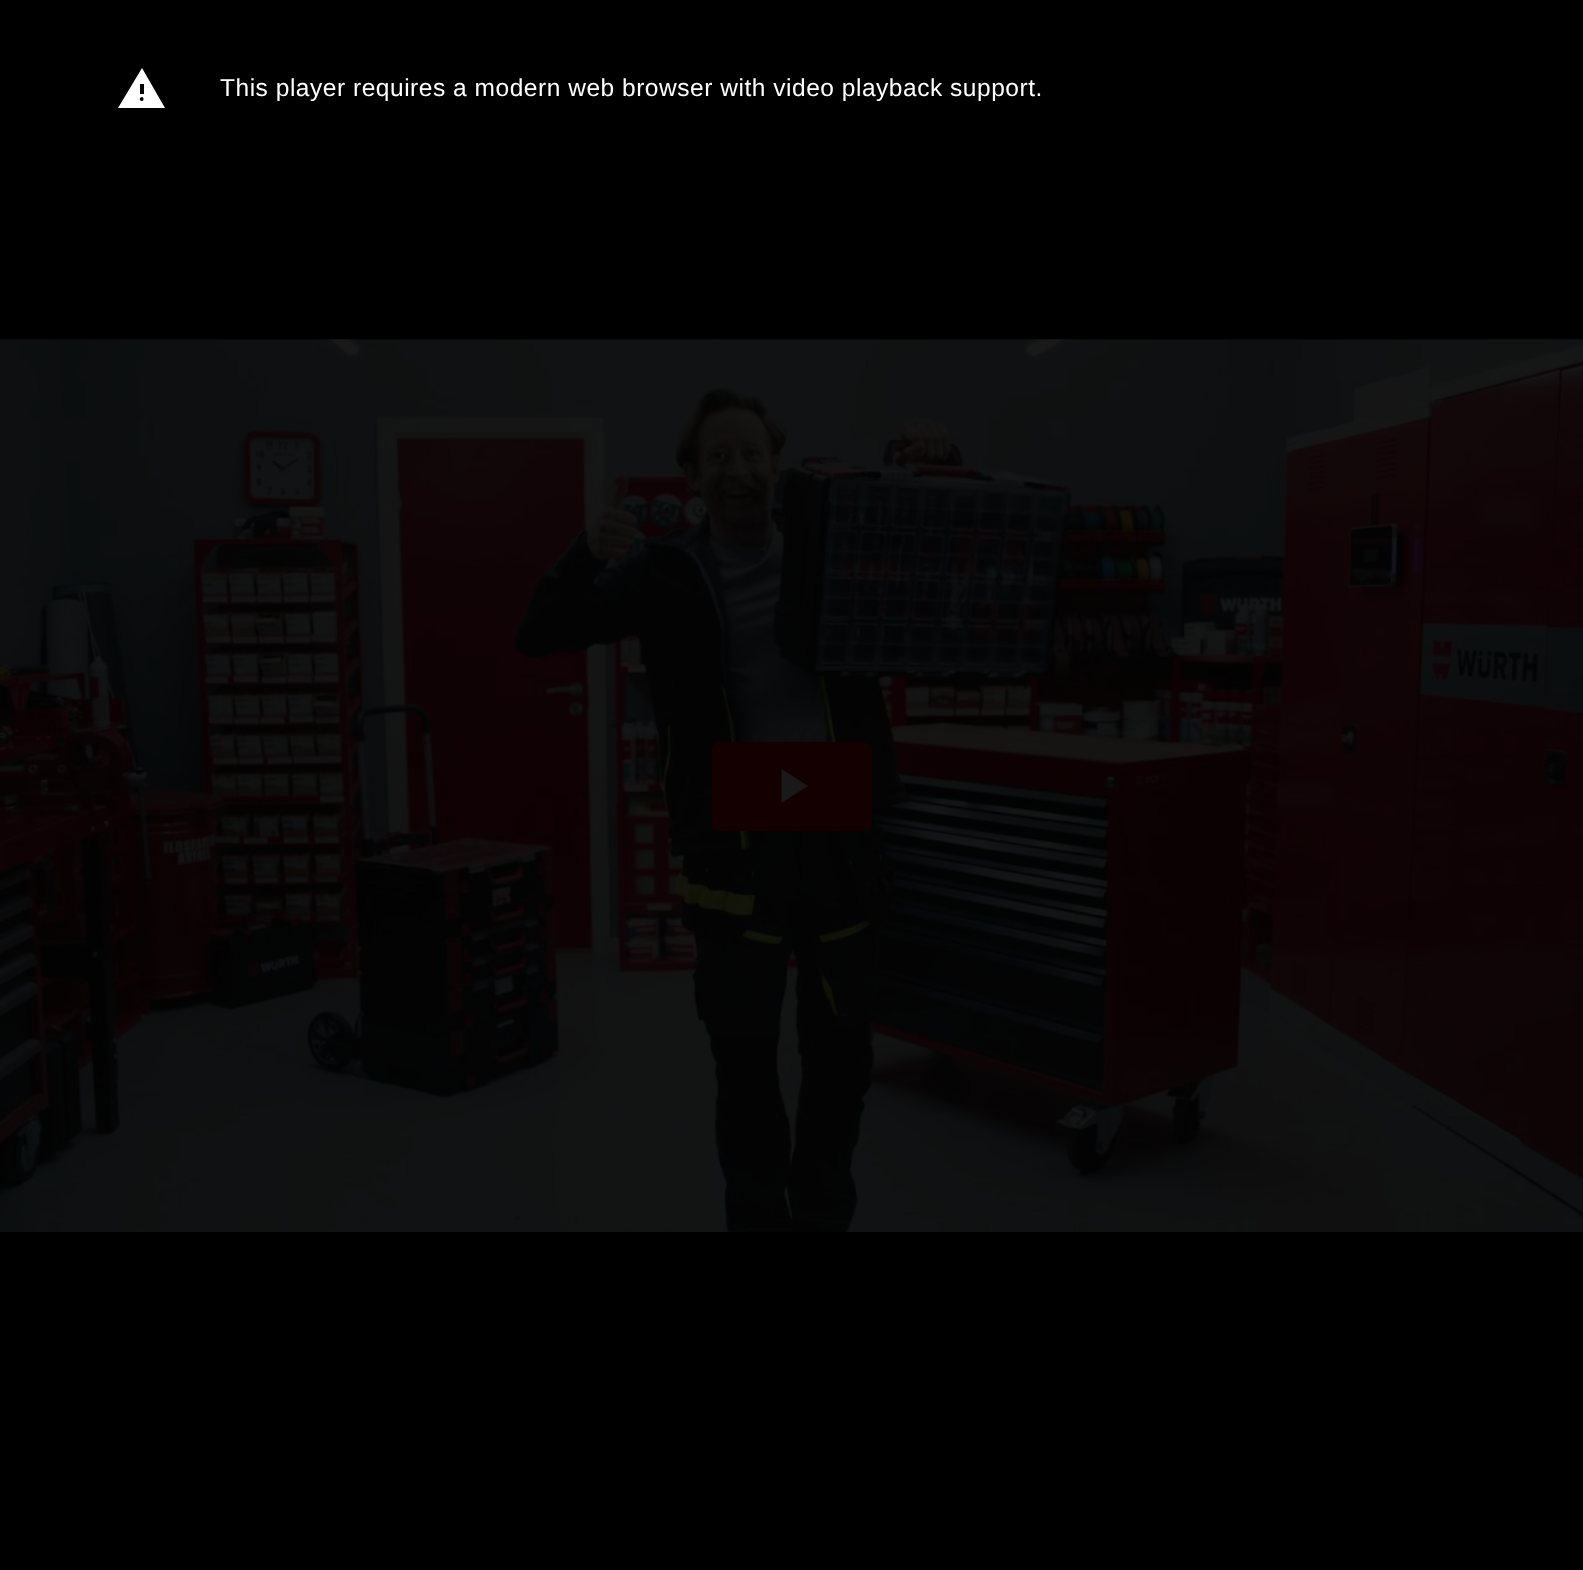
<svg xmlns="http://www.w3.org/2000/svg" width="1583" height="1570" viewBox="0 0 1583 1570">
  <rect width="100%" height="100%" fill="#000"/>
  <path d="M118 108L142 68L165 108ZM142 101C144 101 144 97 142 97C139 97 139 101 142 101ZM140 94H144V84H140Z" fill="#fff"/>
  <image x="0" y="339" width="1583" height="893" href="img/1.png"/>
  <image x="0" y="339" width="1583" height="1" href="img/2.png"/>
  <rect x="712" y="742" width="160" height="89" rx="7" fill="#140000"/>
  <path d="M781.5 769V803L808 786Z" fill="#191919"/>
  <text x="220" y="96" font-family="Liberation Sans" font-size="24.5" letter-spacing="0.53" fill="#fff">This player requires a modern web browser with video playback support.</text>
</svg>
